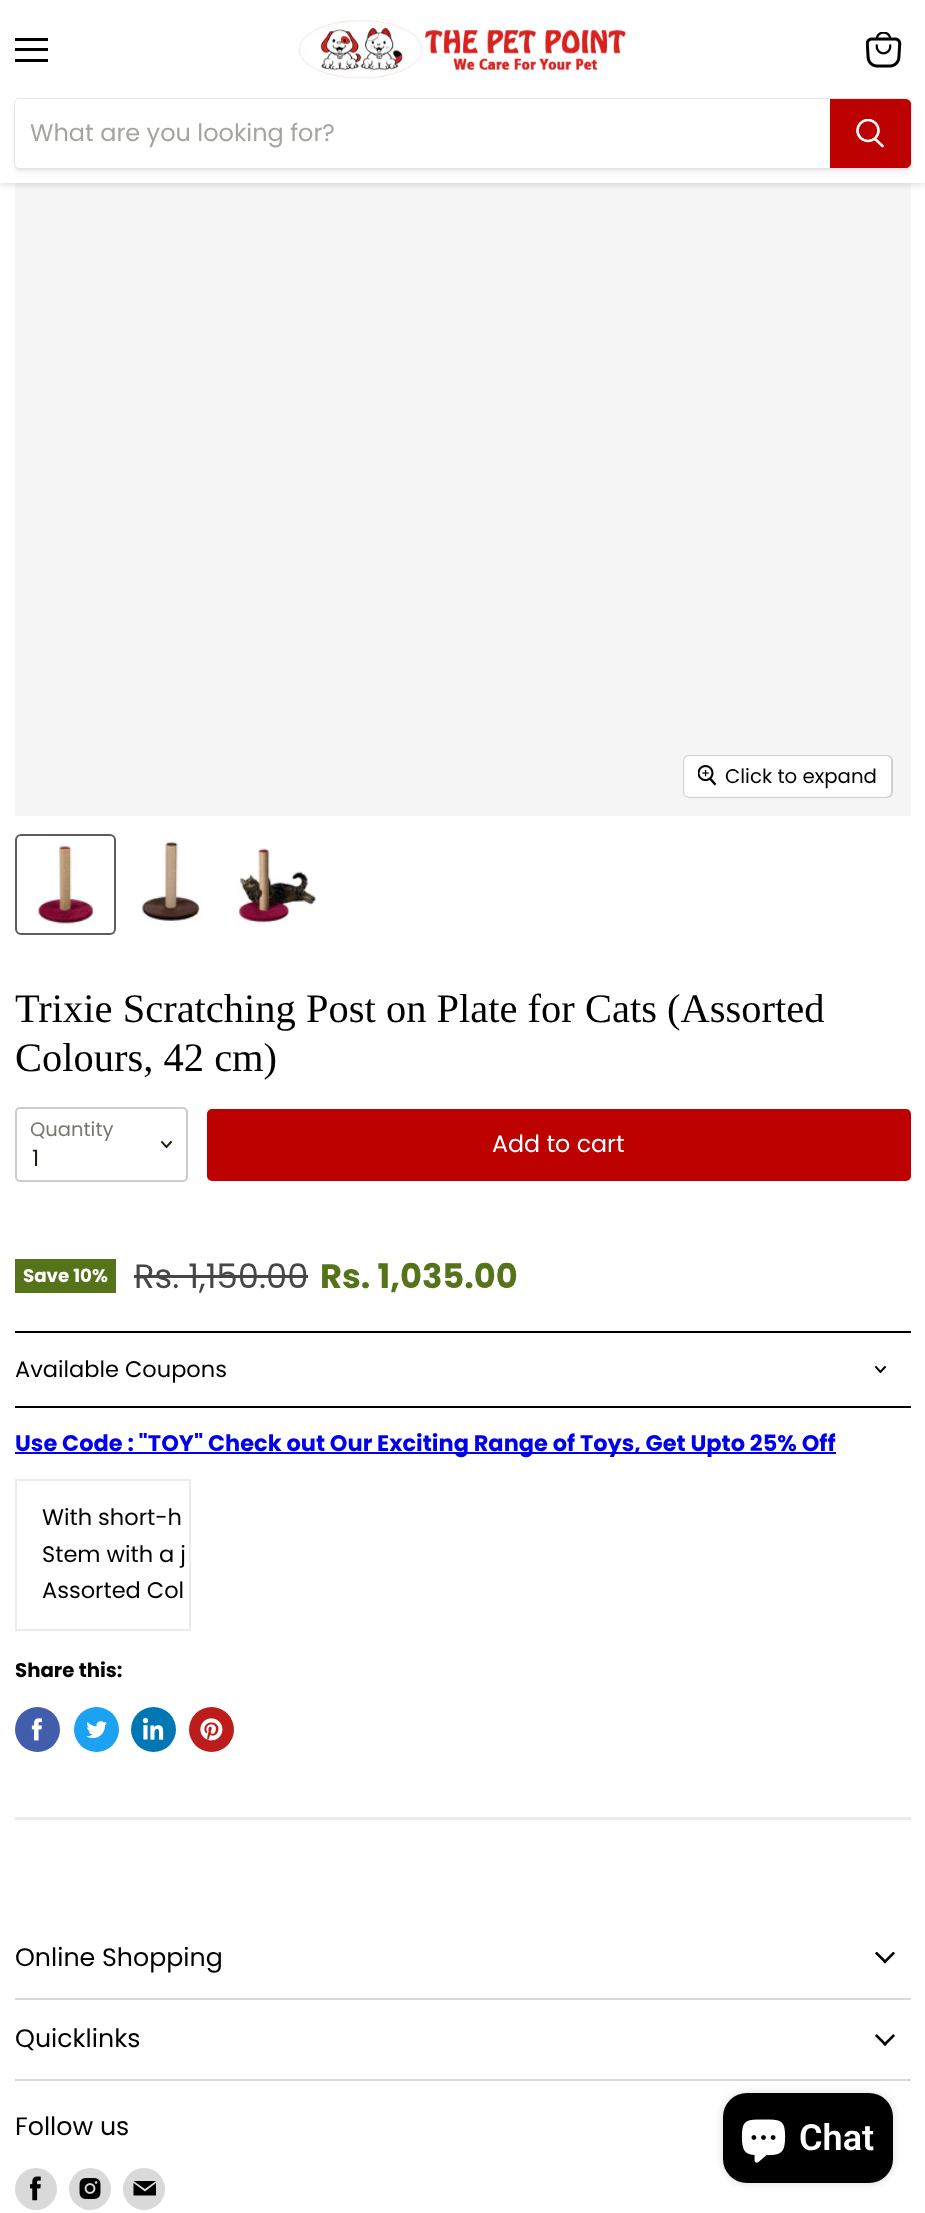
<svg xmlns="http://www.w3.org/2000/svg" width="925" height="2213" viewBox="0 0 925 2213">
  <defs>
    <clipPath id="clip1"><path d="M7 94H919V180H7ZM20 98H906C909.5 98 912 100.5 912 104V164C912 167.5 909.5 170 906 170H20C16.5 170 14 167.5 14 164V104C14 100.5 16.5 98 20 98Z" clip-rule="evenodd"/></clipPath>
    <clipPath id="clip2"><path d="M855 119h30v31H855z"/></clipPath>
  </defs>
  <rect width="100%" height="100%" fill="#fff"/>
  <path d="M15 183h896v633H15z" fill="#f5f5f5"/>
  <path d="M0 2h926v183H0z" fill="#80808040" filter="blur(3px)"/>
  <path d="M0 0h925v183H0z" fill="#fff"/>
  <path d="M15 38h33v3H15z" fill="#000"/>
  <path d="M15 48h33v3H15z" fill="#000"/>
  <path d="M15 59h33v3H15z" fill="#000"/>
  <image x="866" y="32" width="36" height="36" href="img/1.png"/>
  <image x="298" y="20" width="328" height="59" href="img/2.png"/>
  <g clip-path="url(#clip1)">
    <rect x="14" y="101" width="898" height="72" rx="6" fill="#8080801c" filter="blur(2px)"/>
  </g>
  <rect x="15" y="99" width="896" height="70" rx="5" fill="none" stroke="#80808033" stroke-width="2"/>
  <path d="M20 99H830V168H20C17 168 15 166 15 163V104C15 101 17 99 20 99Z" fill="#fff"/>
  <path d="M831 100H906C908 100 910 102 910 104V163C910 165 908 167 906 167H831Z" fill="#bd0000" stroke="#bd0000" stroke-width="2"/>
  <path d="M882.5 146L875 139" fill="none" stroke="#fff" stroke-width="2.6" stroke-linecap="round"/>
  <g clip-path="url(#clip2)">
    <circle cx="868" cy="130.5" r="10.5" fill="none" stroke="#fff" stroke-width="2.6"/>
  </g>
  <rect x="684" y="756" width="208" height="41" rx="5" fill="none" stroke="#d0d0d0" stroke-width="2"/>
  <rect x="684" y="756" width="207" height="41" rx="5" fill="#ffffffe6"/>
  <image x="698" y="765" width="19" height="21" href="img/3.png"/>
  <rect x="16" y="835" width="99" height="99" rx="5" fill="none" stroke="#5c5c5c" stroke-width="2"/>
  <image x="37" y="844" width="59" height="81" href="img/4.png"/>
  <image x="139" y="838" width="62" height="86" href="img/5.png"/>
  <image x="238" y="848" width="79" height="77" href="img/6.png"/>
  <rect x="16" y="1108" width="171" height="73" rx="4" fill="none" stroke="#ccc" stroke-width="2"/>
  <path d="M166.5 1147L171 1142M166.5 1147L162 1142" fill="none" stroke="#1a1e11" stroke-width="1.9" stroke-linecap="square"/>
  <rect x="208" y="1110" width="702" height="70" rx="4" fill="#bd0000" stroke="#bd0000" stroke-width="2"/>
  <path d="M15 1259h101v34H15z" fill="#557319"/>
  <path d="M134 1275h174v3H134z" fill="#464646"/>
  <path d="M15 1331h896v2H15z" fill="#000"/>
  <path d="M15 1406h896v2H15z" fill="#000"/>
  <path d="M880.5 1372L885 1367M880.5 1372L876 1367" fill="none" stroke="#000" stroke-width="1.9" stroke-linecap="square"/>
  <path d="M15 1452h821v2H15z" fill="#00e"/>
  <path d="M16 1480h174v150H16z" fill="none" stroke="#80808029" stroke-width="2"/>
  <circle cx="37.5" cy="1729.5" r="22.5" fill="#425dab"/>
  <image x="31" y="1718" width="11" height="23" href="img/7.png"/>
  <circle cx="96.5" cy="1729.5" r="22.5" fill="#1da1f2"/>
  <image x="86" y="1721" width="21" height="18" href="img/8.png"/>
  <circle cx="153.5" cy="1729.5" r="22.5" fill="#0077b5"/>
  <image x="142" y="1717" width="22" height="23" href="img/9.png"/>
  <circle cx="211.5" cy="1729.5" r="22.5" fill="#bd1c1c"/>
  <image x="200" y="1718" width="23" height="23" href="img/10.png"/>
  <path d="M15 1817h896v3H15z" fill="#80808029"/>
  <path d="M15 1998h896v2H15z" fill="#d9d9d9"/>
  <image x="875" y="1952" width="20" height="12" href="img/11.png"/>
  <path d="M15 2079h896v2H15z" fill="#d9d9d9"/>
  <image x="875" y="2034" width="20" height="12" href="img/12.png"/>
  <circle cx="36" cy="2189" r="21" fill="#d9d9d9"/>
  <image x="30" y="2176" width="11" height="25" href="img/13.png"/>
  <circle cx="90" cy="2189" r="21" fill="#d9d9d9"/>
  <image x="79" y="2178" width="22" height="21" href="img/14.png"/>
  <circle cx="144" cy="2189" r="21" fill="#d9d9d9"/>
  <path d="M156 2181H133.5L145 2189ZM145 2191.5L133.5 2183V2195.5H156V2183Z" fill="#000" fill-rule="evenodd"/>
  <rect x="723" y="2093" width="170" height="90" rx="24" fill="#00000026" filter="blur(4px)"/>
  <rect x="723" y="2093" width="170" height="90" rx="24" fill="#000"/>
  <image x="741" y="2119" width="45" height="44" href="img/15.png"/>
  <text x="30" y="141" font-family="Poppins" font-size="24" fill="#a3a5a0">What are you looking for?</text>
  <text x="725" y="783" font-family="Poppins" font-size="19.75" fill="#000">Click to expand</text>
  <g font-family="Liberation Serif" font-size="40.5" fill="#000">
    <text x="15" y="1022">Trixie Scratching Post on Plate for Cats (Assorted</text>
    <text x="15" y="1071">Colours, 42 cm)</text>
  </g>
  <text x="30" y="1136" font-family="Poppins" font-size="19.5" fill="#767870">Quantity</text>
  <text x="32" y="1166" font-family="Poppins" font-size="22.5" fill="#1a1e11">1</text>
  <text x="492" y="1152" font-family="Poppins" font-size="23.75" fill="#fff">Add to cart</text>
  <text x="23" y="1282" font-family="Poppins" font-size="18.25" font-weight="bold" fill="#fff">Save 10%</text>
  <text x="134" y="1288" font-family="Poppins" font-size="33.75" fill="#464646">Rs. 1,150.00</text>
  <text x="320" y="1288" font-family="Poppins" font-size="33.75" font-weight="bold" fill="#557319">Rs. 1,035.00</text>
  <text x="15" y="1377" font-family="Poppins" font-size="22.5" fill="#000">Available Coupons</text>
  <text x="15" y="1451" font-family="Poppins" font-size="22.5" font-weight="bold" fill="#00e">Use Code : "TOY" Check out Our Exciting Range of Toys, Get Upto 25% Off</text>
  <g font-family="Poppins" font-size="22.5" fill="#000">
    <text x="42" y="1525">With short-h</text>
    <text x="42" y="1562">Stem with a j</text>
    <text x="42" y="1598">Assorted Col</text>
  </g>
  <text x="15" y="1677" font-family="Poppins" font-size="19.75" font-weight="bold" fill="#000">Share this:</text>
  <g font-family="Poppins" font-size="25.25" fill="#000">
    <text x="15" y="1966">Online Shopping</text>
    <text x="15" y="2047">Quicklinks</text>
    <text x="15" y="2135">Follow us</text>
  </g>
  <text x="799" y="2150" font-family="Roboto" font-size="36" font-weight="600" fill="#fff">Chat</text>
</svg>
